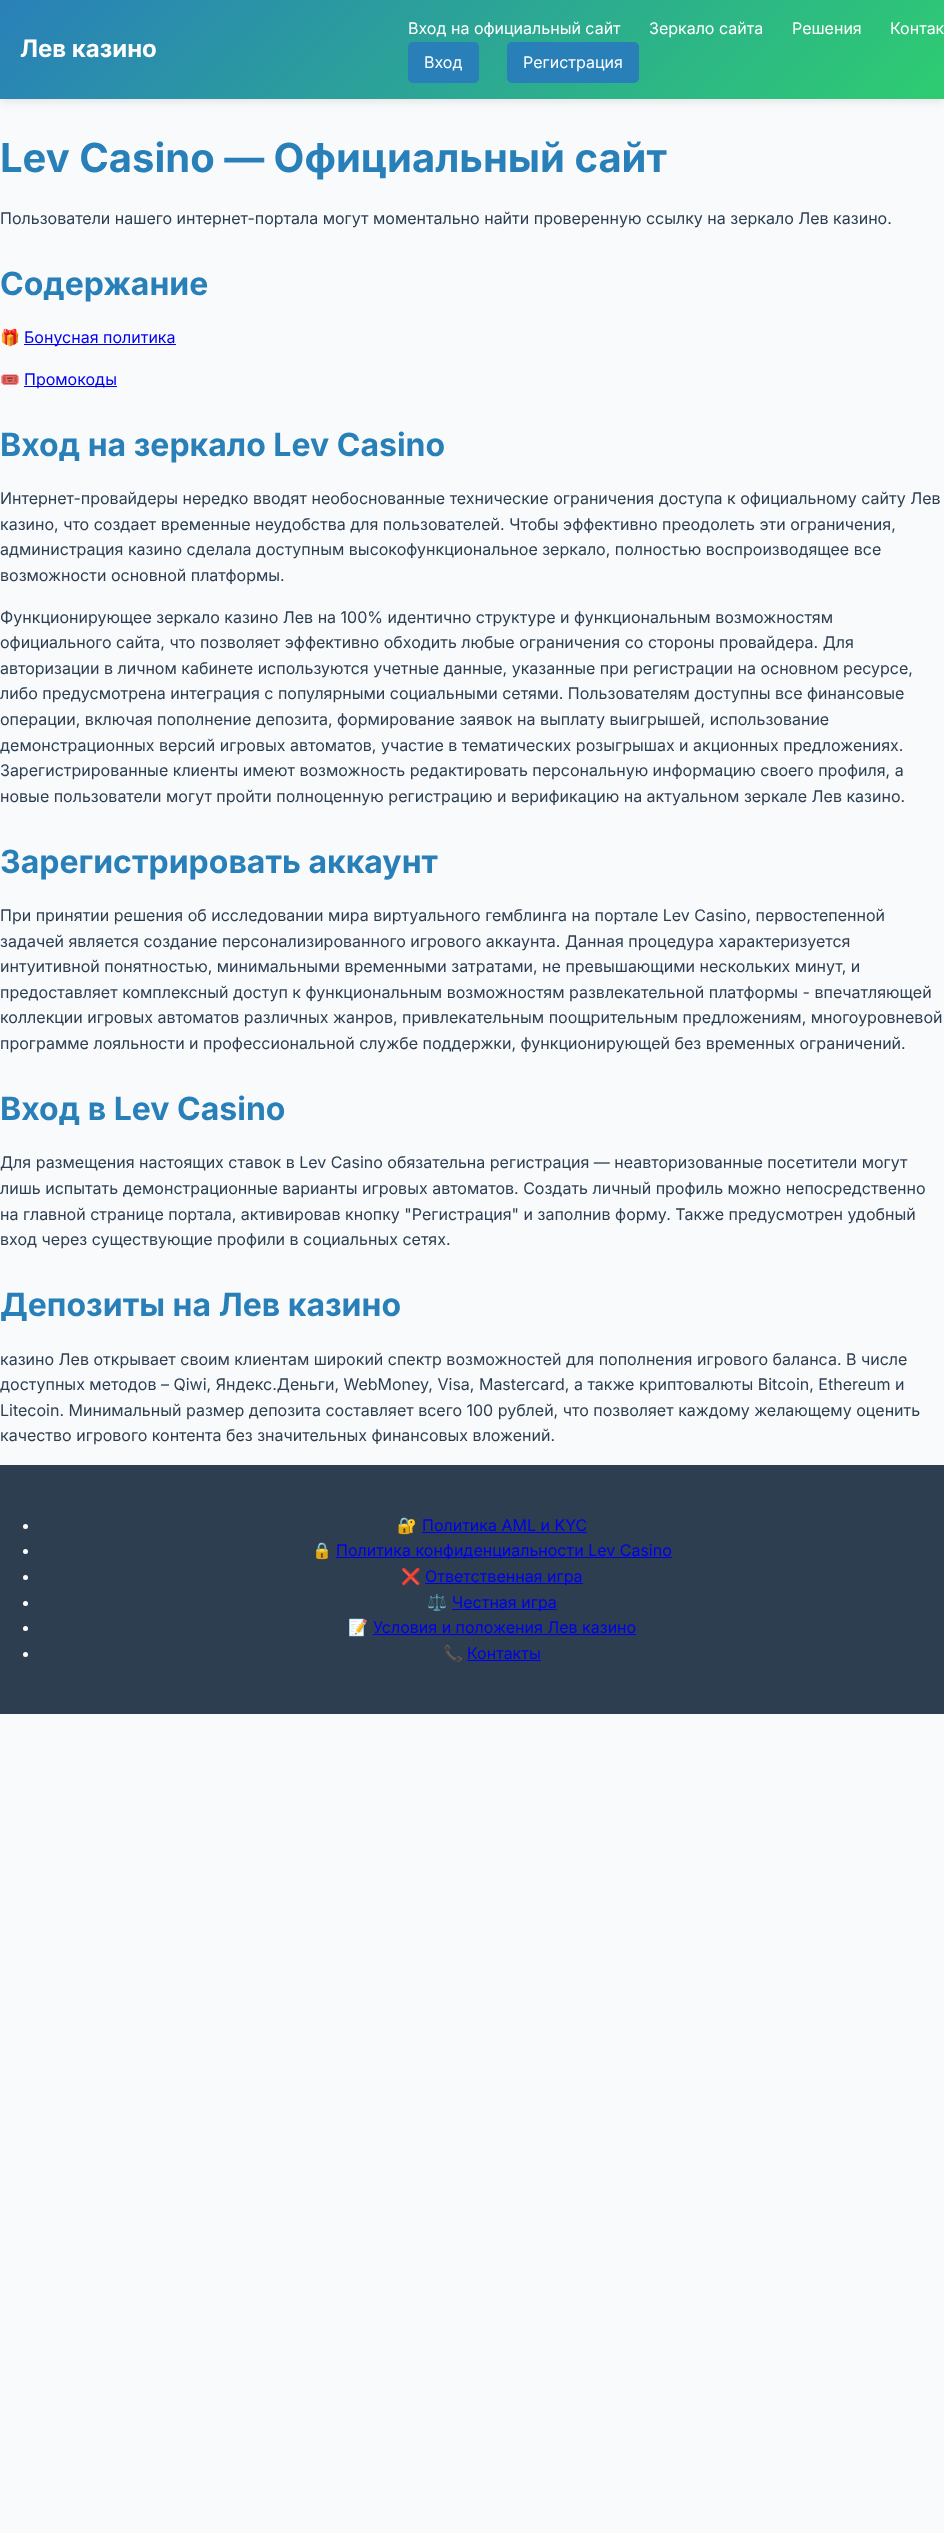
<svg xmlns="http://www.w3.org/2000/svg" width="944" height="2533" viewBox="0 0 944 2533">
  <defs>
    <linearGradient id="g1" gradientUnits="userSpaceOnUse" x1="211" y1="-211" x2="733" y2="310"><stop offset="0" stop-color="#2980b9"/><stop offset="1" stop-color="#2ecc71"/></linearGradient>
  </defs>
  <rect width="100%" height="100%" fill="#f8fafc"/>
  <path d="M0 2h944v99H0z" fill="#0000001a" filter="blur(5px)"/>
  <path d="M0 0h944v99H0z" fill="url(#g1)"/>
  <rect x="408" y="42" width="71" height="41" rx="5" fill="#2980b9"/>
  <rect x="507" y="42" width="132" height="41" rx="5" fill="#2980b9"/>
  <path d="M24 344h152v1H24z" fill="#00e"/>
  <path d="M24 386h93v1H24z" fill="#00e"/>
  <path d="M0 1465h944v249H0z" fill="#2c3e50"/>
  <circle cx="25.5" cy="1526.5" r="2.5" fill="#fff"/>
  <path d="M422 1532h165v1H422z" fill="#00e"/>
  <circle cx="25.5" cy="1551.5" r="2.5" fill="#fff"/>
  <path d="M336 1557h336v1H336z" fill="#00e"/>
  <circle cx="25.5" cy="1577.5" r="2.5" fill="#fff"/>
  <path d="M425 1583h158v1H425z" fill="#00e"/>
  <circle cx="25.5" cy="1603.5" r="2.5" fill="#fff"/>
  <path d="M452 1609h105v1H452z" fill="#00e"/>
  <circle cx="25.5" cy="1628.5" r="2.5" fill="#fff"/>
  <path d="M373 1634h263v1H373z" fill="#00e"/>
  <circle cx="25.5" cy="1654.5" r="2.5" fill="#fff"/>
  <path d="M467 1660h74v1H467z" fill="#00e"/>
  <text x="20" y="57" font-family="Inter" font-size="24" font-weight="bold" fill="#fff">Лев казино</text>
  <g font-family="Inter" font-size="16" fill="#fff">
    <text x="408" y="34">Вход на официальный сайт</text>
    <text x="649" y="34">Зеркало сайта</text>
    <text x="792" y="34">Решения</text>
    <text x="890" y="34">Контак</text>
    <text x="424" y="68">Вход</text>
    <text x="523" y="68">Регистрация</text>
  </g>
  <text x="0" y="172" font-family="Inter" font-size="40" font-weight="bold" fill="#2980b9">Lev Casino — Официальный сайт</text>
  <text x="0" y="224" font-family="Inter" font-size="16" fill="#2c3e50">Пользователи нашего интернет-портала могут моментально найти проверенную ссылку на зеркало Лев казино.</text>
  <text x="0" y="295" font-family="Inter" font-size="32" font-weight="bold" fill="#2980b9">Содержание</text>
  <text x="0" y="343" font-family="Noto Color Emoji" font-size="16" fill="#2c3e50">🎁</text>
  <text x="24" y="343" font-family="Inter" font-size="16" fill="#00e">Бонусная политика</text>
  <text x="0" y="385" font-family="Noto Color Emoji" font-size="16" fill="#2c3e50">🎟️</text>
  <text x="24" y="385" font-family="Inter" font-size="16" fill="#00e">Промокоды</text>
  <text x="0" y="456" font-family="Inter" font-size="32" font-weight="bold" fill="#2980b9">Вход на зеркало Lev Casino</text>
  <g font-family="Inter" font-size="16" fill="#2c3e50">
    <text x="0" y="504">Интернет-провайдеры нередко вводят необоснованные технические ограничения доступа к официальному сайту Лев</text>
    <text x="0" y="530">казино, что создает временные неудобства для пользователей. Чтобы эффективно преодолеть эти ограничения,</text>
    <text x="0" y="555">администрация казино сделала доступным высокофункциональное зеркало, полностью воспроизводящее все</text>
    <text x="0" y="581">возможности основной платформы.</text>
    <text x="0" y="623">Функционирующее зеркало казино Лев на 100% идентично структуре и функциональным возможностям</text>
    <text x="0" y="648">официального сайта, что позволяет эффективно обходить любые ограничения со стороны провайдера. Для</text>
    <text x="0" y="674">авторизации в личном кабинете используются учетные данные, указанные при регистрации на основном ресурсе,</text>
    <text x="0" y="699">либо предусмотрена интеграция с популярными социальными сетями. Пользователям доступны все финансовые</text>
    <text x="0" y="725">операции, включая пополнение депозита, формирование заявок на выплату выигрышей, использование</text>
    <text x="0" y="751">демонстрационных версий игровых автоматов, участие в тематических розыгрышах и акционных предложениях.</text>
    <text x="0" y="776">Зарегистрированные клиенты имеют возможность редактировать персональную информацию своего профиля, а</text>
    <text x="0" y="802">новые пользователи могут пройти полноценную регистрацию и верификацию на актуальном зеркале Лев казино.</text>
  </g>
  <text x="0" y="873" font-family="Inter" font-size="32" font-weight="bold" fill="#2980b9">Зарегистрировать аккаунт</text>
  <g font-family="Inter" font-size="16" fill="#2c3e50">
    <text x="0" y="921">При принятии решения об исследовании мира виртуального гемблинга на портале Lev Casino, первостепенной</text>
    <text x="0" y="947">задачей является создание персонализированного игрового аккаунта. Данная процедура характеризуется</text>
    <text x="0" y="972">интуитивной понятностью, минимальными временными затратами, не превышающими нескольких минут, и</text>
    <text x="0" y="998">предоставляет комплексный доступ к функциональным возможностям развлекательной платформы - впечатляющей</text>
    <text x="0" y="1023">коллекции игровых автоматов различных жанров, привлекательным поощрительным предложениям, многоуровневой</text>
    <text x="0" y="1049">программе лояльности и профессиональной службе поддержки, функционирующей без временных ограничений.</text>
  </g>
  <text x="0" y="1120" font-family="Inter" font-size="32" font-weight="bold" fill="#2980b9">Вход в Lev Casino</text>
  <g font-family="Inter" font-size="16" fill="#2c3e50">
    <text x="0" y="1168">Для размещения настоящих ставок в Lev Casino обязательна регистрация — неавторизованные посетители могут</text>
    <text x="0" y="1194">лишь испытать демонстрационные варианты игровых автоматов. Создать личный профиль можно непосредственно</text>
    <text x="0" y="1220">на главной странице портала, активировав кнопку "Регистрация" и заполнив форму. Также предусмотрен удобный</text>
    <text x="0" y="1245">вход через существующие профили в социальных сетях.</text>
  </g>
  <text x="0" y="1316" font-family="Inter" font-size="32" font-weight="bold" fill="#2980b9">Депозиты на Лев казино</text>
  <g font-family="Inter" font-size="16" fill="#2c3e50">
    <text x="0" y="1365">казино Лев открывает своим клиентам широкий спектр возможностей для пополнения игрового баланса. В числе</text>
    <text x="0" y="1390">доступных методов – Qiwi, Яндекс.Деньги, WebMoney, Visa, Mastercard, а также криптовалюты Bitcoin, Ethereum и</text>
    <text x="0" y="1416">Litecoin. Минимальный размер депозита составляет всего 100 рублей, что позволяет каждому желающему оценить</text>
    <text x="0" y="1441">качество игрового контента без значительных финансовых вложений.</text>
  </g>
  <text x="397" y="1531" font-family="Noto Color Emoji" font-size="16" fill="#fff">🔐</text>
  <text x="422" y="1531" font-family="Inter" font-size="16" fill="#00e">Политика AML и KYC</text>
  <text x="312" y="1556" font-family="Noto Color Emoji" font-size="16" fill="#fff">🔒</text>
  <text x="336" y="1556" font-family="Inter" font-size="16" fill="#00e">Политика конфиденциальности Lev Casino</text>
  <text x="401" y="1582" font-family="Noto Color Emoji" font-size="16" fill="#fff">❌</text>
  <text x="425" y="1582" font-family="Inter" font-size="16" fill="#00e">Ответственная игра</text>
  <text x="427" y="1608" font-family="Noto Color Emoji" font-size="16" fill="#fff">⚖️</text>
  <text x="452" y="1608" font-family="Inter" font-size="16" fill="#00e">Честная игра</text>
  <text x="348" y="1633" font-family="Noto Color Emoji" font-size="16" fill="#fff">📝</text>
  <text x="373" y="1633" font-family="Inter" font-size="16" fill="#00e">Условия и положения Лев казино</text>
  <text x="443" y="1659" font-family="Noto Color Emoji" font-size="16" fill="#fff">📞</text>
  <text x="467" y="1659" font-family="Inter" font-size="16" fill="#00e">Контакты</text>
</svg>
